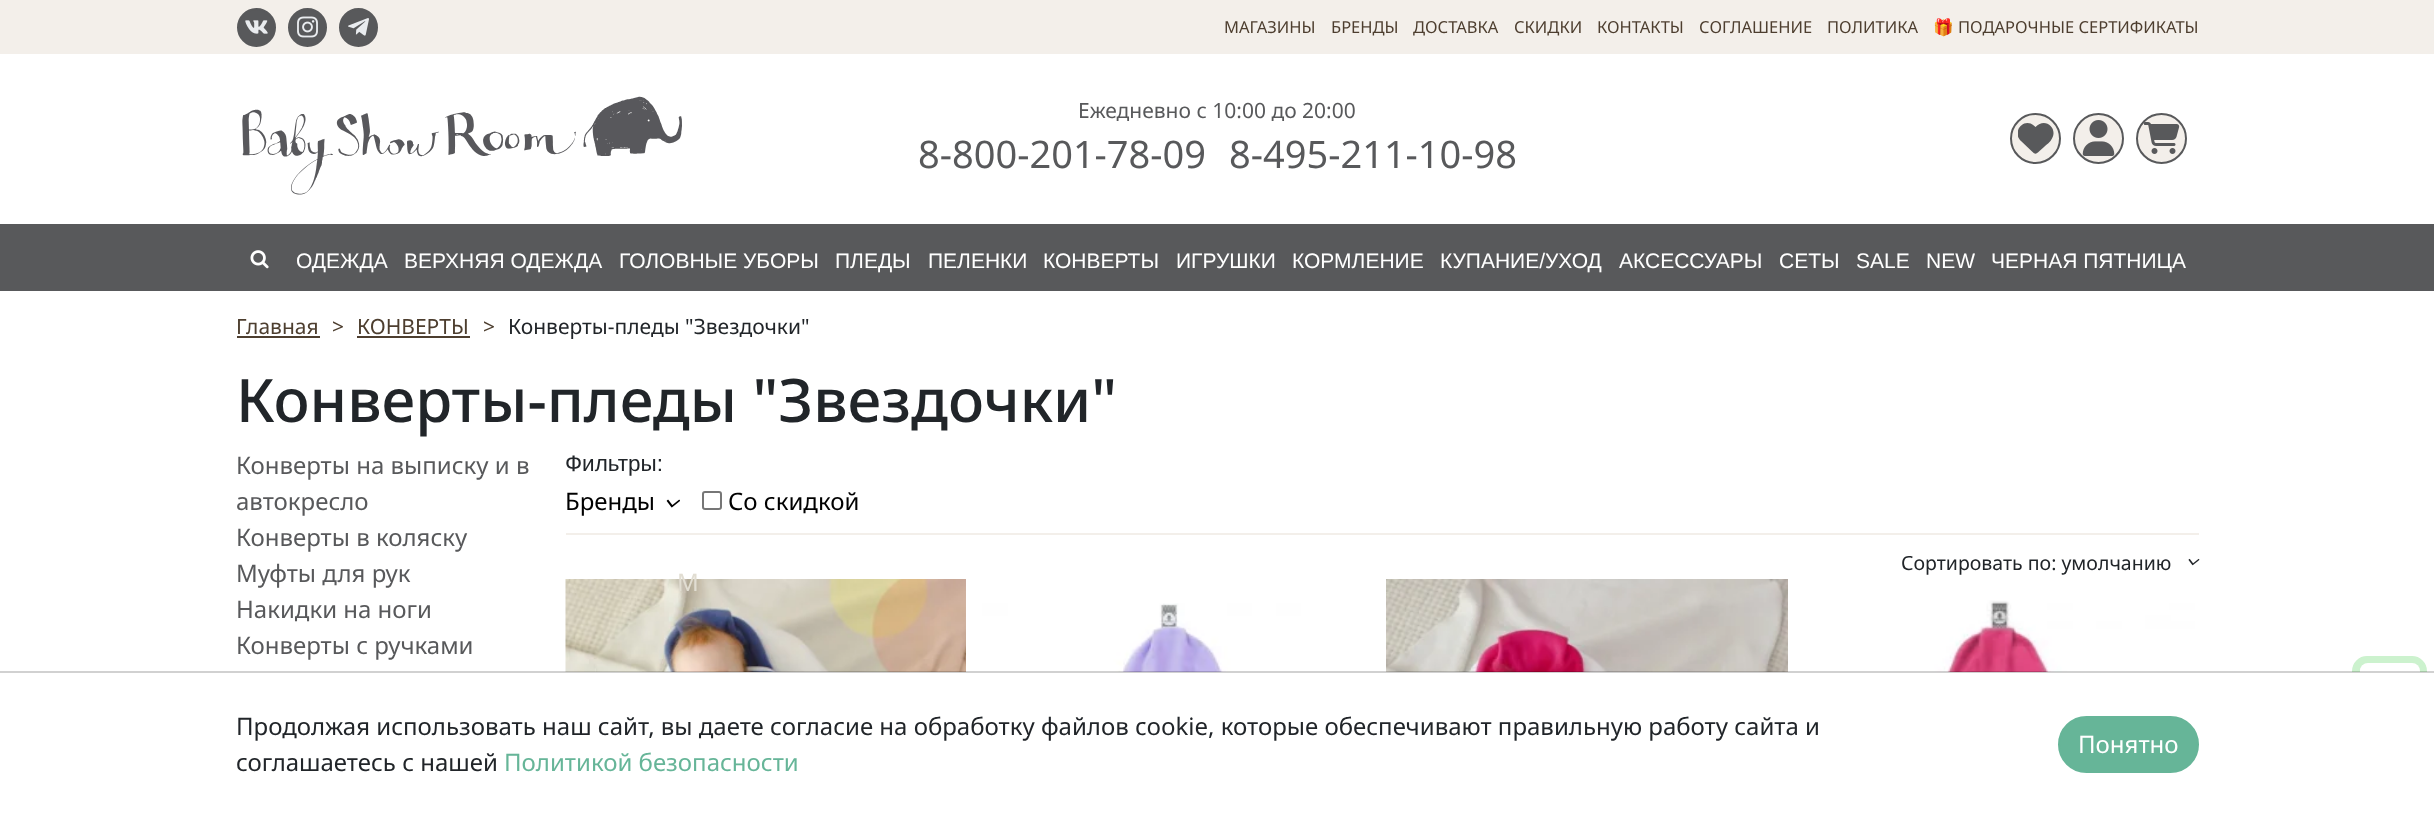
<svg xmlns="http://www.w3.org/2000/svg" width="2434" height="827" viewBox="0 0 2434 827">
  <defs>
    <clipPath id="clip1"><path d="M2018 120h36v36H2018z"/></clipPath>
  </defs>
  <rect width="100%" height="100%" fill="#fff"/>
  <path d="M0 0h2434v54H0z" fill="#f3efea"/>
  <circle cx="256.5" cy="27.5" r="18.5" fill="#58595b" stroke="#58595b" stroke-width="2"/>
  <image x="245" y="20" width="23" height="14" href="img/1.png"/>
  <circle cx="307.5" cy="27.5" r="18.5" fill="#58595b" stroke="#58595b" stroke-width="2"/>
  <image x="297" y="16" width="21" height="22" href="img/2.png"/>
  <circle cx="358.5" cy="27.5" r="18.5" fill="#58595b" stroke="#58595b" stroke-width="2"/>
  <image x="348" y="18" width="21" height="18" href="img/3.png"/>
  <image x="242" y="96" width="440" height="99" href="img/4.png"/>
  <circle cx="2035.5" cy="138.5" r="24.5" fill="#f3efea" stroke="#58595b" stroke-width="2"/>
  <g clip-path="url(#clip1)">
    <path d="M2021 141L2031.5 151C2035.5 154.5 2035.5 154.5 2039.5 151L2044 147C2046.5 144.5 2050.5 142 2052 138.5C2058 128 2045 117 2035.5 127C2024.5 115.5 2011 132 2021 141Z" fill="#58595b"/>
  </g>
  <circle cx="2098.5" cy="138.5" r="24.5" fill="#f3efea" stroke="#58595b" stroke-width="2"/>
  <image x="2082" y="120" width="33" height="36" href="img/5.png"/>
  <circle cx="2161.5" cy="138.5" r="24.5" fill="#f3efea" stroke="#58595b" stroke-width="2"/>
  <image x="2144" y="122" width="36" height="32" href="img/6.png"/>
  <path d="M0 224h2434v67H0z" fill="#58595b"/>
  <image x="250" y="250" width="19" height="19" href="img/7.png"/>
  <path d="M237 336h83v2H237z" fill="#4d3e2f"/>
  <path d="M357 336h113v2H357z" fill="#4d3e2f"/>
  <path d="M566 533h1633v2H566z" fill="#f3efea"/>
  <image x="666" y="499" width="14" height="9" href="img/8.png"/>
  <rect x="703" y="492" width="18" height="17" rx="2" fill="none" stroke="#767676" stroke-width="2"/>
  <image x="2188" y="558" width="12" height="8" href="img/9.png"/>
  <image x="565" y="579" width="401" height="93" href="img/10.png"/>
  <image x="975" y="603" width="402" height="69" href="img/11.png"/>
  <image x="1386" y="579" width="402" height="93" href="img/12.png"/>
  <image x="1797" y="600" width="402" height="72" href="img/13.png"/>
  <rect x="2356" y="660" width="67" height="67" rx="11" fill="none" stroke="#ccf2ce" stroke-width="8"/>
  <rect x="2360" y="663" width="60" height="60" rx="8" fill="#fff"/>
  <path d="M2352 672h75v59H2352z" fill="#fff"/>
  <path d="M0 671h2434v2H0z" fill="#0000002e"/>
  <rect x="2059" y="717" width="139" height="55" rx="27.5" fill="#66b598" stroke="#66b598" stroke-width="2"/>
  <g font-family="Noto Sans" font-size="16.5" fill="#4d3e2f">
    <text x="1224" y="33">МАГАЗИНЫ</text>
    <text x="1331" y="33">БРЕНДЫ</text>
    <text x="1413" y="33">ДОСТАВКА</text>
    <text x="1514" y="33">СКИДКИ</text>
    <text x="1597" y="33">КОНТАКТЫ</text>
    <text x="1699" y="33">CОГЛАШЕНИЕ</text>
    <text x="1827" y="33">ПОЛИТИКА</text>
  </g>
  <text x="1933" y="33" font-family="Noto Color Emoji" font-size="16.5" fill="#4d3e2f">🎁</text>
  <text x="1958" y="33" font-family="Noto Sans" font-size="16.5" fill="#4d3e2f">ПОДАРОЧНЫЕ СЕРТИФИКАТЫ</text>
  <text x="1078" y="118" font-family="Noto Sans" font-size="21" fill="#58595b">Ежедневно с 10:00 до 20:00</text>
  <g font-family="Noto Sans" font-size="38" fill="#58595b">
    <text x="918" y="168">8-800-201-78-09</text>
    <text x="1229" y="168">8-495-211-10-98</text>
  </g>
  <g font-family="Liberation Sans" font-size="21" fill="#fff">
    <text x="296" y="268">ОДЕЖДА</text>
    <text x="404" y="268">ВЕРХНЯЯ ОДЕЖДА</text>
    <text x="619" y="268">ГОЛОВНЫЕ УБОРЫ</text>
    <text x="835" y="268">ПЛЕДЫ</text>
    <text x="928" y="268">ПЕЛЕНКИ</text>
    <text x="1043" y="268">КОНВЕРТЫ</text>
    <text x="1176" y="268">ИГРУШКИ</text>
    <text x="1292" y="268">КОРМЛЕНИЕ</text>
    <text x="1440" y="268">КУПАНИЕ/УХОД</text>
    <text x="1619" y="268">АКСЕССУАРЫ</text>
    <text x="1779" y="268">СЕТЫ</text>
    <text x="1856" y="268">SALE</text>
    <text x="1926" y="268">NEW</text>
    <text x="1991" y="268">ЧЕРНАЯ ПЯТНИЦА</text>
  </g>
  <g font-family="Noto Sans" font-size="21" fill="#4d3e2f">
    <text x="236" y="334">Главная</text>
    <text x="332" y="334">&gt;</text>
    <text x="357" y="334">КОНВЕРТЫ</text>
    <text x="483" y="334">&gt;</text>
  </g>
  <text x="508" y="334" font-family="Noto Sans" font-size="21" fill="#212529">Конверты-пледы "Звездочки"</text>
  <text x="236" y="422" font-family="Noto Sans" font-size="60" font-weight="500" fill="#212529">Конверты-пледы "Звездочки"</text>
  <g font-family="Noto Sans" font-size="24" fill="#58595b">
    <text x="236" y="474">Конверты на выписку и в</text>
    <text x="236" y="510">автокресло</text>
    <text x="236" y="546">Конверты в коляску</text>
    <text x="236" y="582">Муфты для рук</text>
    <text x="236" y="618">Накидки на ноги</text>
    <text x="236" y="654">Конверты с ручками</text>
  </g>
  <text x="565" y="471" font-family="Liberation Sans" font-size="22.5" fill="#212529">Фильтры:</text>
  <text x="565" y="510" font-family="Noto Sans" font-size="24" fill="#000">Бренды</text>
  <text x="677" y="591" font-family="Noto Sans" font-size="24" fill="#e1ddd2">M</text>
  <text x="728" y="510" font-family="Noto Sans" font-size="24" fill="#000">Со скидкой</text>
  <text x="1901" y="570" font-family="Noto Sans" font-size="19.5" fill="#212529">Сортировать по: умолчанию</text>
  <g font-family="Noto Sans" font-size="24" fill="#212529">
    <text x="236" y="735">Продолжая использовать наш сайт, вы даете согласие на обработку файлов cookie, которые обеспечивают правильную работу сайта и</text>
    <text x="236" y="771">соглашаетесь с нашей</text>
  </g>
  <text x="504" y="771" font-family="Noto Sans" font-size="24" fill="#66b598">Политикой безопасности</text>
  <text x="2078" y="753" font-family="Noto Sans" font-size="24" fill="#fff">Понятно</text>
</svg>
